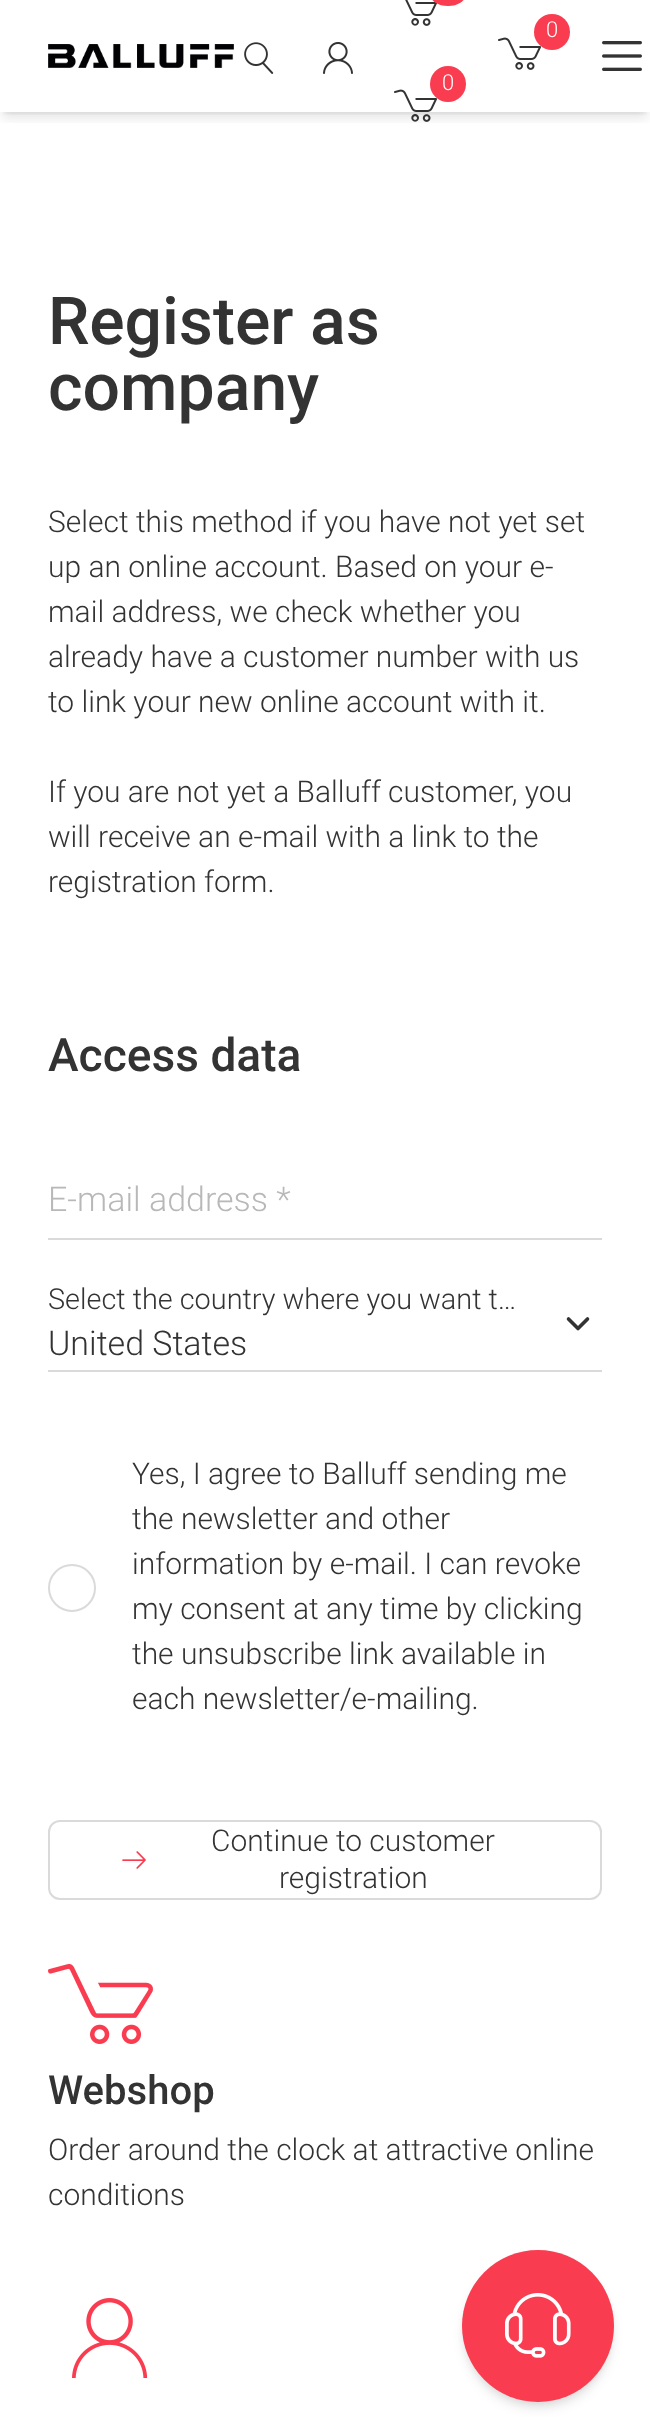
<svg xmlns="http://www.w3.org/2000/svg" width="650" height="2417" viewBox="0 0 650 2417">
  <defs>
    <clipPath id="clip1"><path d="M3 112h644v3H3z"/></clipPath>
    <clipPath id="clip2"><path d="M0 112h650v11H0z"/></clipPath>
  </defs>
  <rect width="100%" height="100%" fill="#fff"/>
  <g clip-path="url(#clip1)">
    <path d="M4 8h642v104H4z" fill="#0000001a" filter="blur(4px)"/>
  </g>
  <g clip-path="url(#clip2)">
    <path d="M2 10h646v108H2z" fill="#0000001a" filter="blur(6px)"/>
  </g>
  <image x="48" y="44" width="186" height="24" href="img/1.png"/>
  <image x="498" y="37" width="43" height="33" href="img/2.png"/>
  <circle cx="552" cy="32" r="18" fill="#f93c4f"/>
  <image x="244" y="42" width="30" height="32" href="img/3.png"/>
  <image x="323" y="42" width="30" height="32" href="img/4.png"/>
  <image x="602" y="41" width="40" height="30" href="img/5.png"/>
  <image x="405" y="0" width="32" height="26" href="img/6.png"/>
  <rect x="430" y="-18" width="36" height="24" rx="18" fill="#f93c4f"/>
  <image x="394" y="89" width="43" height="33" href="img/7.png"/>
  <circle cx="448" cy="84" r="18" fill="#f93c4f"/>
  <path d="M48 1238h554v2H48z" fill="#dadada"/>
  <path d="M568.5 1319L578 1328.5L587.5 1319" fill="none" stroke="#333" stroke-width="3.6" stroke-linecap="round" stroke-linejoin="round"/>
  <path d="M48 1370h554v2H48z" fill="#dadada"/>
  <circle cx="72" cy="1588" r="23" fill="none" stroke="#dadada" stroke-width="2"/>
  <rect x="49" y="1821" width="552" height="78" rx="11" fill="none" stroke="#dadada" stroke-width="2"/>
  <image x="122" y="1851" width="24" height="18" href="img/8.png"/>
  <image x="48" y="1964" width="105" height="80" href="img/9.png"/>
  <image x="72" y="2298" width="76" height="80" href="img/10.png"/>
  <rect x="466" y="2258" width="144" height="144" rx="72" fill="#0000001a" filter="blur(4px)"/>
  <rect x="464" y="2260" width="148" height="148" rx="74" fill="#0000001a" filter="blur(6px)"/>
  <circle cx="538" cy="2326" r="76" fill="#f93c4f"/>
  <image x="505" y="2293" width="66" height="65" href="img/11.png"/>
  <g font-family="Roboto" font-size="22" font-weight="300" fill="#fff">
    <text x="546" y="37">0</text>
    <text x="442" y="90">0</text>
  </g>
  <g font-family="Roboto" font-size="66" font-weight="500" fill="#333">
    <text x="48" y="344">Register as</text>
    <text x="48" y="410">company</text>
  </g>
  <g font-family="Roboto" font-size="30" font-weight="300" fill="#333">
    <text x="48" y="532">Select this method if you have not yet set</text>
    <text x="48" y="577">up an online account. Based on your e-</text>
    <text x="48" y="622">mail address, we check whether you</text>
    <text x="48" y="667">already have a customer number with us</text>
    <text x="48" y="712">to link your new online account with it.</text>
    <text x="48" y="802">If you are not yet a Balluff customer, you</text>
    <text x="48" y="847">will receive an e-mail with a link to the</text>
    <text x="48" y="892">registration form.</text>
  </g>
  <text x="48" y="1071" font-family="Roboto" font-size="46" font-weight="500" fill="#333">Access data</text>
  <text x="48" y="1211" font-family="Roboto" font-size="34" font-weight="300" fill="#b8b8b8">E-mail address *</text>
  <text x="48" y="1309" font-family="Roboto" font-size="28.9" font-weight="300" fill="#333">Select the country where you want t…</text>
  <text x="48" y="1355" font-family="Roboto" font-size="34" font-weight="300" fill="#333">United States</text>
  <g font-family="Roboto" font-size="30" font-weight="300" fill="#333">
    <text x="132" y="1484">Yes, I agree to Balluff sending me</text>
    <text x="132" y="1529">the newsletter and other</text>
    <text x="132" y="1574">information by e-mail. I can revoke</text>
    <text x="132" y="1619">my consent at any time by clicking</text>
    <text x="132" y="1664">the unsubscribe link available in</text>
    <text x="132" y="1709">each newsletter/e-mailing.</text>
    <text x="211" y="1851">Continue to customer</text>
    <text x="279" y="1888">registration</text>
  </g>
  <text x="48" y="2104" font-family="Roboto" font-size="40" font-weight="500" fill="#333">Webshop</text>
  <g font-family="Roboto" font-size="30" font-weight="300" fill="#333">
    <text x="48" y="2160">Order around the clock at attractive online</text>
    <text x="48" y="2205">conditions</text>
  </g>
</svg>
